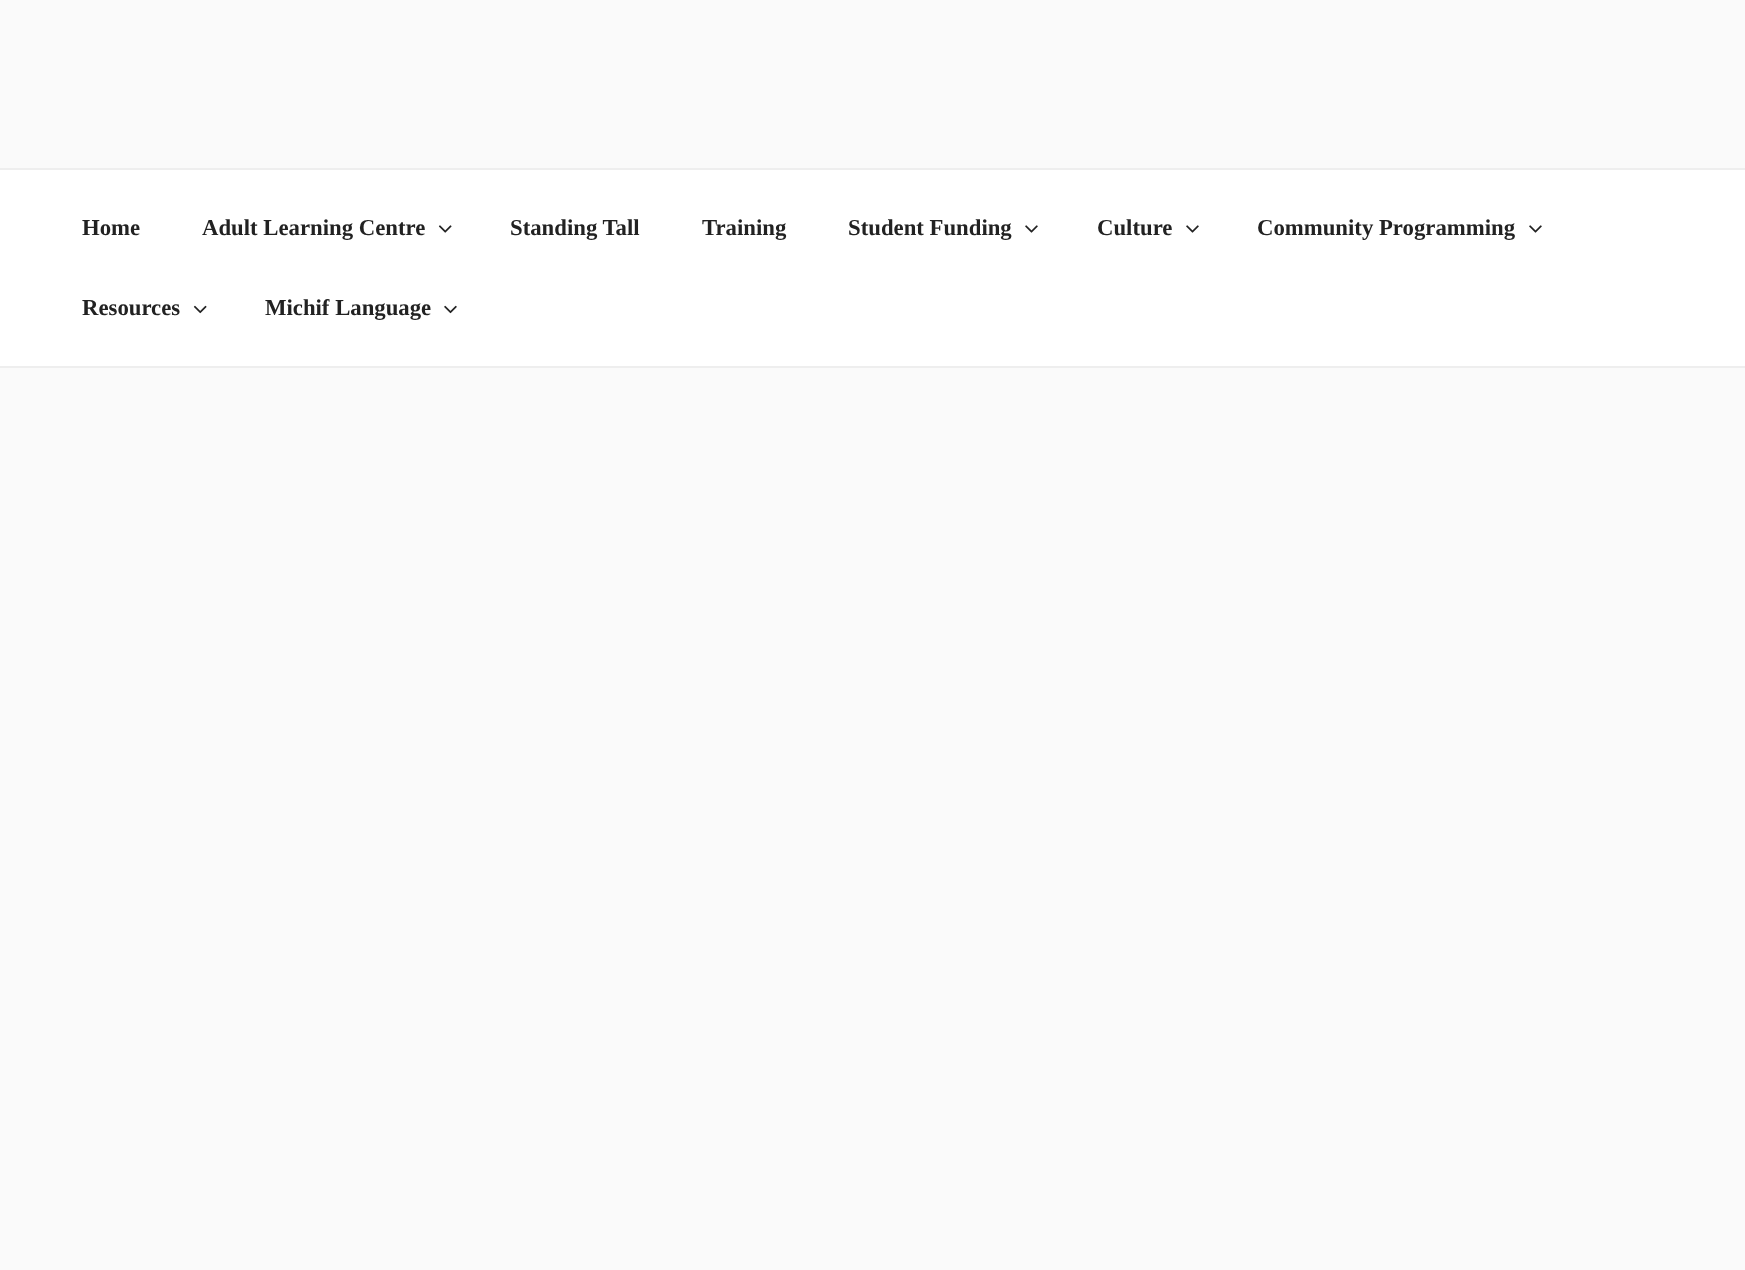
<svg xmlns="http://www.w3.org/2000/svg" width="1745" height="1270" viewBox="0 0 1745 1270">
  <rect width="100%" height="100%" fill="#fafafa"/>
  <path d="M0 170h1745v196H0z" fill="#fff"/>
  <path d="M0 168h1745v2H0z" fill="#eee"/>
  <path d="M0 366h1745v2H0z" fill="#eee"/>
  <image x="438" y="225" width="14" height="8" href="img/1.png"/>
  <image x="1025" y="225" width="13" height="8" href="img/2.png"/>
  <image x="1186" y="225" width="13" height="8" href="img/2.png"/>
  <image x="1529" y="225" width="13" height="8" href="img/2.png"/>
  <image x="193" y="305" width="14" height="9" href="img/3.png"/>
  <image x="444" y="305" width="13" height="9" href="img/4.png"/>
  <g font-family="Liberation Serif" font-size="22.75" font-weight="bold" fill="#222">
    <text x="82" y="235">Home</text>
    <text x="202" y="235">Adult Learning Centre</text>
    <text x="510" y="235">Standing Tall</text>
    <text x="702" y="235">Training</text>
    <text x="848" y="235">Student Funding</text>
    <text x="1097" y="235">Culture</text>
    <text x="1257" y="235">Community Programming</text>
    <text x="82" y="315">Resources</text>
    <text x="265" y="315">Michif Language</text>
  </g>
</svg>
